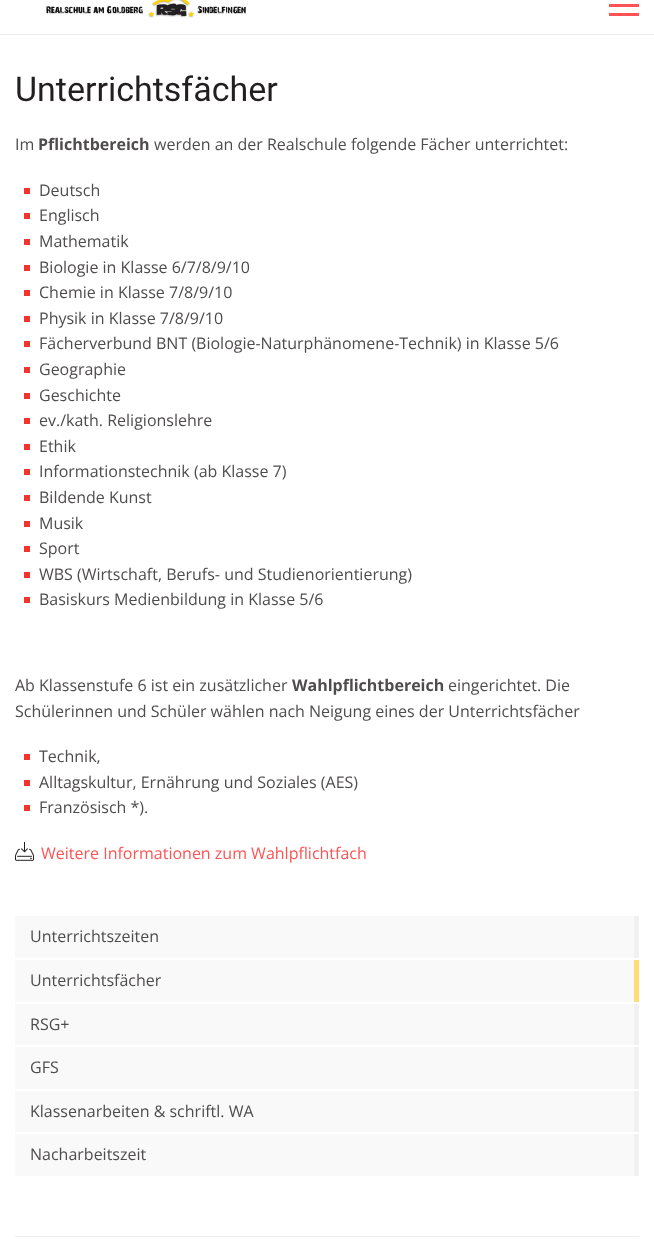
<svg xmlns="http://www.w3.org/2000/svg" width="654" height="1253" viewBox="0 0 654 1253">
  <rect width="100%" height="100%" fill="#fff"/>
  <path d="M0 34h654v1H0z" fill="#ededed"/>
  <image x="46" y="0" width="200" height="18" href="img/1.png"/>
  <path d="M609 4h30v3H609z" fill="#ff5252"/>
  <path d="M609 13h30v3H609z" fill="#ff5252"/>
  <path d="M24 188h6v6H24z" fill="#f1352c"/>
  <path d="M24 213h6v6H24z" fill="#f1352c"/>
  <path d="M24 239h6v6H24z" fill="#f1352c"/>
  <path d="M24 265h6v6H24z" fill="#f1352c"/>
  <path d="M24 290h6v6H24z" fill="#f1352c"/>
  <path d="M24 316h6v6H24z" fill="#f1352c"/>
  <path d="M24 341h6v6H24z" fill="#f1352c"/>
  <path d="M24 367h6v6H24z" fill="#f1352c"/>
  <path d="M24 393h6v6H24z" fill="#f1352c"/>
  <path d="M24 418h6v6H24z" fill="#f1352c"/>
  <path d="M24 444h6v6H24z" fill="#f1352c"/>
  <path d="M24 469h6v6H24z" fill="#f1352c"/>
  <path d="M24 495h6v6H24z" fill="#f1352c"/>
  <path d="M24 521h6v6H24z" fill="#f1352c"/>
  <path d="M24 546h6v6H24z" fill="#f1352c"/>
  <path d="M24 572h6v6H24z" fill="#f1352c"/>
  <path d="M24 597h6v6H24z" fill="#f1352c"/>
  <path d="M24 754h6v6H24z" fill="#f1352c"/>
  <path d="M24 780h6v6H24z" fill="#f1352c"/>
  <path d="M24 805h6v6H24z" fill="#f1352c"/>
  <image x="15" y="841" width="19" height="20" href="img/2.png"/>
  <path d="M15 916h619v42H15z" fill="#f9f9f9"/>
  <path d="M634 916h5v42H634z" fill="#f1f1f1"/>
  <path d="M15 960h619v42H15z" fill="#f9f9f9"/>
  <path d="M634 960h5v42H634z" fill="#ffdd72"/>
  <path d="M15 1004h619v41H15z" fill="#f9f9f9"/>
  <path d="M634 1004h5v41H634z" fill="#f1f1f1"/>
  <path d="M15 1047h619v42H15z" fill="#f9f9f9"/>
  <path d="M634 1047h5v42H634z" fill="#f1f1f1"/>
  <path d="M15 1091h619v41H15z" fill="#f9f9f9"/>
  <path d="M634 1091h5v41H634z" fill="#f1f1f1"/>
  <path d="M15 1134h619v42H15z" fill="#f9f9f9"/>
  <path d="M634 1134h5v42H634z" fill="#f1f1f1"/>
  <path d="M15 1236h624v1H15z" fill="#ededed"/>
  <text x="15" y="101" font-family="Roboto" font-size="34" fill="#231f20">Unterrichtsfächer</text>
  <text x="15" y="150" font-family="Open Sans" font-size="16" fill="#4f4c4d">Im</text>
  <text x="38" y="150" font-family="Open Sans" font-size="16" font-weight="bold" fill="#4f4c4d">Pflichtbereich</text>
  <g font-family="Open Sans" font-size="16" fill="#4f4c4d">
    <text x="154" y="150">werden an der Realschule folgende Fächer unterrichtet:</text>
    <text x="39" y="196">Deutsch</text>
    <text x="39" y="221">Englisch</text>
    <text x="39" y="247">Mathematik</text>
    <text x="39" y="273">Biologie in Klasse 6/7/8/9/10</text>
    <text x="39" y="298">Chemie in Klasse 7/8/9/10</text>
    <text x="39" y="324">Physik in Klasse 7/8/9/10</text>
    <text x="39" y="349">Fächerverbund BNT (Biologie-Naturphänomene-Technik) in Klasse 5/6</text>
    <text x="39" y="375">Geographie</text>
    <text x="39" y="401">Geschichte</text>
    <text x="39" y="426">ev./kath. Religionslehre</text>
    <text x="39" y="452">Ethik</text>
    <text x="39" y="477">Informationstechnik (ab Klasse 7)</text>
    <text x="39" y="503">Bildende Kunst</text>
    <text x="39" y="529">Musik</text>
    <text x="39" y="554">Sport</text>
    <text x="39" y="580">WBS (Wirtschaft, Berufs- und Studienorientierung)</text>
    <text x="39" y="605">Basiskurs Medienbildung in Klasse 5/6</text>
    <text x="15" y="691">Ab Klassenstufe 6 ist ein zusätzlicher</text>
  </g>
  <text x="292" y="691" font-family="Open Sans" font-size="16" font-weight="bold" fill="#4f4c4d">Wahlpflichtbereich</text>
  <g font-family="Open Sans" font-size="16" fill="#4f4c4d">
    <text x="448" y="691">eingerichtet. Die</text>
    <text x="15" y="717">Schülerinnen und Schüler wählen nach Neigung eines der Unterrichtsfächer</text>
    <text x="39" y="762">Technik,</text>
    <text x="39" y="788">Alltagskultur, Ernährung und Soziales (AES)</text>
    <text x="39" y="813">Französisch *).</text>
  </g>
  <text x="41" y="859" font-family="Open Sans" font-size="16" fill="#ff5252">Weitere Informationen zum Wahlpflichtfach</text>
  <g font-family="Open Sans" font-size="16" fill="#4f4c4d">
    <text x="30" y="942">Unterrichtszeiten</text>
    <text x="30" y="986">Unterrichtsfächer</text>
    <text x="30" y="1030">RSG+</text>
    <text x="30" y="1073">GFS</text>
    <text x="30" y="1117">Klassenarbeiten &amp; schriftl. WA</text>
    <text x="30" y="1160">Nacharbeitszeit</text>
  </g>
</svg>
